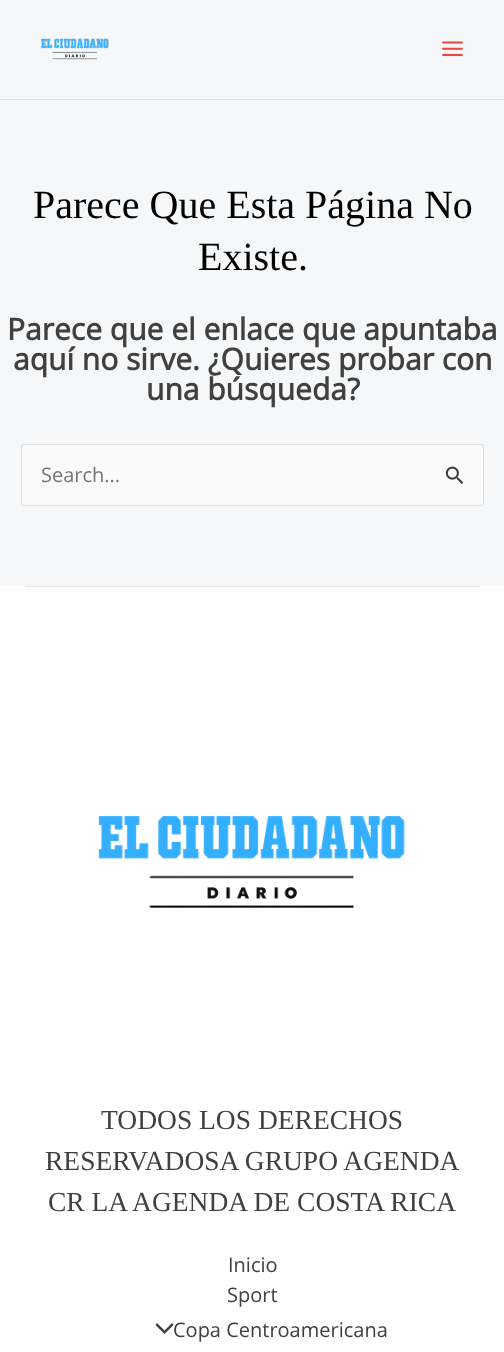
<svg xmlns="http://www.w3.org/2000/svg" width="504" height="1352" viewBox="0 0 504 1352">
  <rect width="100%" height="100%" fill="#f6f7f8"/>
  <path d="M0 99h504v1H0z" fill="#dddedf"/>
  <image x="40" y="38" width="69" height="22" href="img/1.png"/>
  <image x="442" y="41" width="21" height="16" href="img/2.png"/>
  <rect x="21.5" y="444.5" width="462" height="61" rx="2" fill="#fafafa" stroke="#ddd"/>
  <image x="445" y="466" width="18" height="18" href="img/3.png"/>
  <path d="M0 586h504v766H0z" fill="#fff"/>
  <path d="M25 586h455v1H25z" fill="#e6e6e6"/>
  <image x="98" y="815" width="307" height="93" href="img/4.png"/>
  <path d="M155.5 1325L164.5 1334L173.5 1325L172 1323L164.5 1330.5L157 1323Z" fill="#404040"/>
  <g font-family="Liberation Serif" font-size="40" fill="#000">
    <text x="33" y="218">Parece Que Esta Página No</text>
    <text x="198" y="270">Existe.</text>
  </g>
  <g font-family="Open Sans" font-size="30" font-weight="bold" fill="#404040">
    <text x="7" y="340">Parece que el enlace que apuntaba</text>
    <text x="13" y="370">aquí no sirve. ¿Quieres probar con</text>
    <text x="146" y="400">una búsqueda?</text>
  </g>
  <text x="41" y="482" font-family="Open Sans" font-size="20" fill="#757575">Search...</text>
  <g font-family="Liberation Serif" font-size="27.5" fill="#404040">
    <text x="101" y="1129">TODOS LOS DERECHOS</text>
    <text x="45" y="1170">RESERVADOSA GRUPO AGENDA</text>
    <text x="48" y="1211">CR LA AGENDA DE COSTA RICA</text>
  </g>
  <g font-family="Open Sans" font-size="20" fill="#404040">
    <text x="228" y="1272">Inicio</text>
    <text x="227" y="1302">Sport</text>
    <text x="173" y="1337">Copa Centroamericana</text>
  </g>
</svg>
